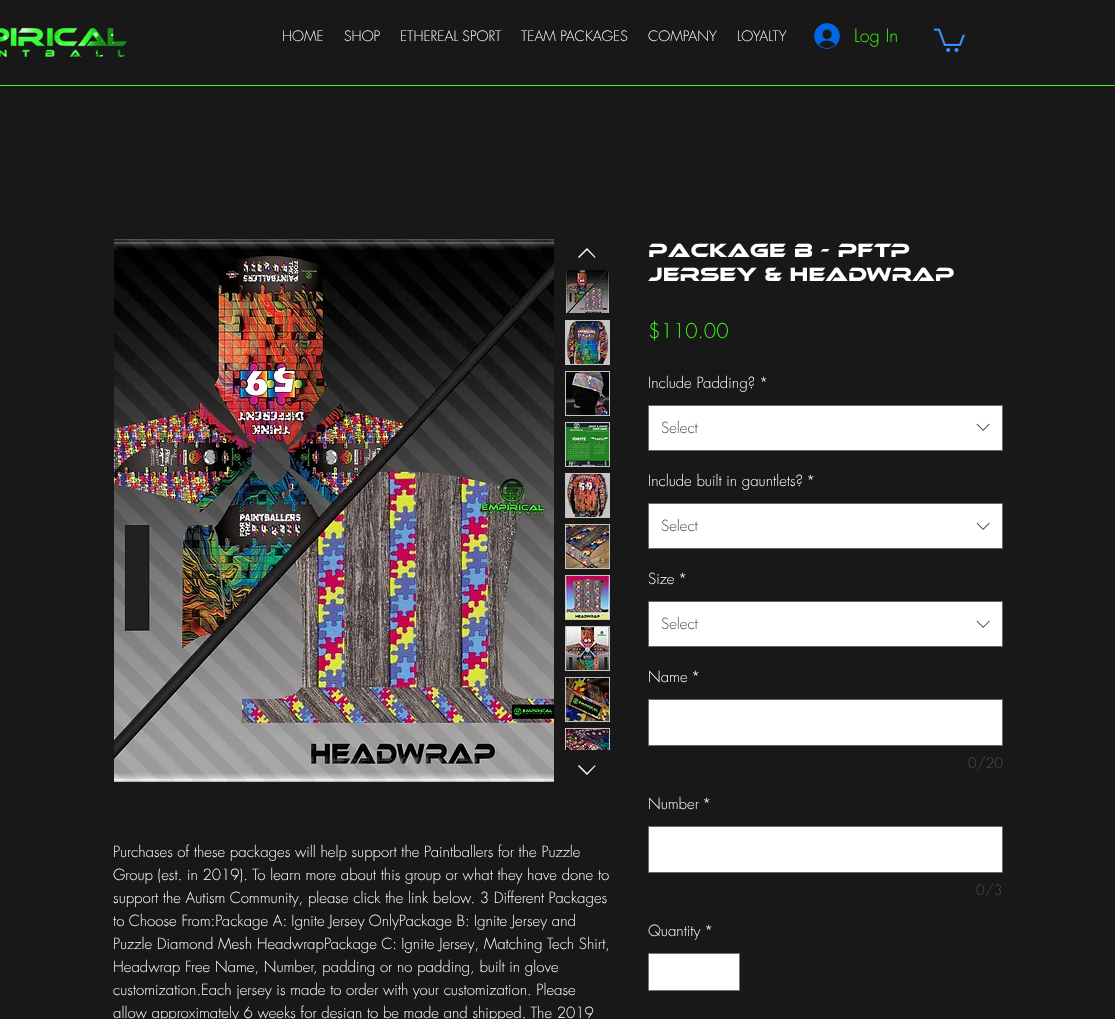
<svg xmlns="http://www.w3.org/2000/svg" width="1115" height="1019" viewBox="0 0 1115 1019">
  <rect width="100%" height="100%" fill="#181818"/>
  <image x="0" y="27" width="127" height="30" href="img/1.png"/>
  <image x="814" y="23" width="26" height="26" href="img/2.png"/>
  <image x="934" y="28" width="31" height="24" href="img/3.png"/>
  <path d="M0 85h1115v1H0z" fill="#3bfa19"/>
  <image x="114" y="239" width="440" height="543" href="img/4.png"/>
  <path d="M587 248L595.5 257L595 258L587 250L579 258L578 257Z" fill="#fff" fill-rule="evenodd"/>
  <image x="566" y="270" width="43" height="43" href="img/5.png"/>
  <path d="M565 320h45v45H565z" fill="#c5c5c5"/>
  <image x="566" y="321" width="43" height="43" href="img/6.png"/>
  <path d="M565 371h45v45H565z" fill="#c5c5c5"/>
  <image x="566" y="372" width="43" height="43" href="img/7.png"/>
  <path d="M565 422h45v45H565z" fill="#c5c5c5"/>
  <image x="566" y="423" width="43" height="43" href="img/8.png"/>
  <path d="M565 473h45v45H565z" fill="#c5c5c5"/>
  <image x="567" y="474" width="41" height="43" href="img/9.png"/>
  <path d="M565 524h45v45H565z" fill="#c5c5c5"/>
  <image x="566" y="525" width="43" height="43" href="img/10.png"/>
  <path d="M565 575h45v45H565z" fill="#c5c5c5"/>
  <image x="566" y="576" width="43" height="43" href="img/11.png"/>
  <path d="M565 626h45v45H565z" fill="#c5c5c5"/>
  <image x="566" y="627" width="43" height="43" href="img/12.png"/>
  <path d="M565 677h45v45H565z" fill="#c5c5c5"/>
  <image x="566" y="678" width="43" height="43" href="img/13.png"/>
  <path d="M565 728h45v22H565z" fill="#c5c5c5"/>
  <image x="566" y="729" width="43" height="21" href="img/14.png"/>
  <path d="M595 765L595.5 766L587 775L578 766L579 765L587 773Z" fill="#fff" fill-rule="evenodd"/>
  <path d="M648.5 405.5h354v45H648.5z" fill="#fff" stroke="#666"/>
  <image x="976" y="423" width="14" height="8" href="img/15.png"/>
  <path d="M648.5 503.5h354v45H648.5z" fill="#fff" stroke="#666"/>
  <image x="976" y="522" width="14" height="8" href="img/15.png"/>
  <path d="M648.5 601.5h354v45H648.5z" fill="#fff" stroke="#666"/>
  <image x="976" y="620" width="14" height="8" href="img/15.png"/>
  <path d="M648.5 699.5h354v46H648.5z" fill="#fff" stroke="#666"/>
  <path d="M648.5 826.5h354v46H648.5z" fill="#fff" stroke="#666"/>
  <path d="M648.5 953.5h91v37H648.5z" fill="#fff" stroke="#747474"/>
  <g font-family="futura" font-size="14" font-weight="300" fill="#fff">
    <text x="282" y="41">HOME</text>
    <text x="344" y="41">SHOP</text>
    <text x="400" y="41">ETHEREAL SPORT</text>
    <text x="521" y="41">TEAM PACKAGES</text>
    <text x="648" y="41">COMPANY</text>
    <text x="737" y="41">LOYALTY</text>
  </g>
  <text x="854" y="42" font-family="futura" font-size="18" font-weight="300" fill="#3bfa19">Log In</text>
  <g font-family="futura" font-size="15" font-weight="300" fill="#fff">
    <text x="113" y="857">Purchases of these packages will help support the Paintballers for the Puzzle</text>
    <text x="113" y="880">Group (est. in 2019). To learn more about this group or what they have done to</text>
    <text x="113" y="903">support the Autism Community, please click the link below. 3 Different Packages</text>
    <text x="113" y="926">to Choose From:Package A: Ignite Jersey OnlyPackage B: Ignite Jersey and</text>
    <text x="113" y="949">Puzzle Diamond Mesh HeadwrapPackage C: Ignite Jersey, Matching Tech Shirt,</text>
    <text x="113" y="972">Headwrap Free Name, Number, padding or no padding, built in glove</text>
    <text x="113" y="995">customization.Each jersey is made to order with your customization. Please</text>
    <text x="113" y="1018">allow approximately 6 weeks for design to be made and shipped. The 2019</text>
  </g>
  <g font-family="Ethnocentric" font-size="20" fill="#fff">
    <text x="648" y="257">Package B - PFTP</text>
    <text x="648" y="281">Jersey &amp; Headwrap</text>
  </g>
  <text x="648" y="338" font-family="futura" font-size="20" font-weight="300" fill="#3bfa19">$110.00</text>
  <g font-family="futura" font-size="15" font-weight="300" fill="#fff">
    <text x="648" y="388">Include Padding?</text>
    <text x="759" y="388">*</text>
  </g>
  <text x="661" y="433" font-family="futura" font-size="15" font-weight="300" fill="#444">Select</text>
  <g font-family="futura" font-size="15" font-weight="300" fill="#fff">
    <text x="648" y="486">Include built in gauntlets?</text>
    <text x="806" y="486">*</text>
  </g>
  <text x="661" y="531" font-family="futura" font-size="15" font-weight="300" fill="#444">Select</text>
  <g font-family="futura" font-size="15" font-weight="300" fill="#fff">
    <text x="648" y="584">Size</text>
    <text x="678" y="584">*</text>
  </g>
  <text x="661" y="629" font-family="futura" font-size="15" font-weight="300" fill="#444">Select</text>
  <g font-family="futura" font-size="15" font-weight="300" fill="#fff">
    <text x="648" y="682">Name</text>
    <text x="691" y="682">*</text>
  </g>
  <text x="968" y="768" font-family="futura" font-size="14" font-weight="300" fill="#525252">0/20</text>
  <g font-family="futura" font-size="15" font-weight="300" fill="#fff">
    <text x="648" y="809">Number</text>
    <text x="702" y="809">*</text>
  </g>
  <text x="976" y="895" font-family="futura" font-size="14" font-weight="300" fill="#525252">0/3</text>
  <g font-family="futura" font-size="15" font-weight="300" fill="#fff">
    <text x="648" y="936">Quantity</text>
    <text x="704" y="936">*</text>
  </g>
</svg>
